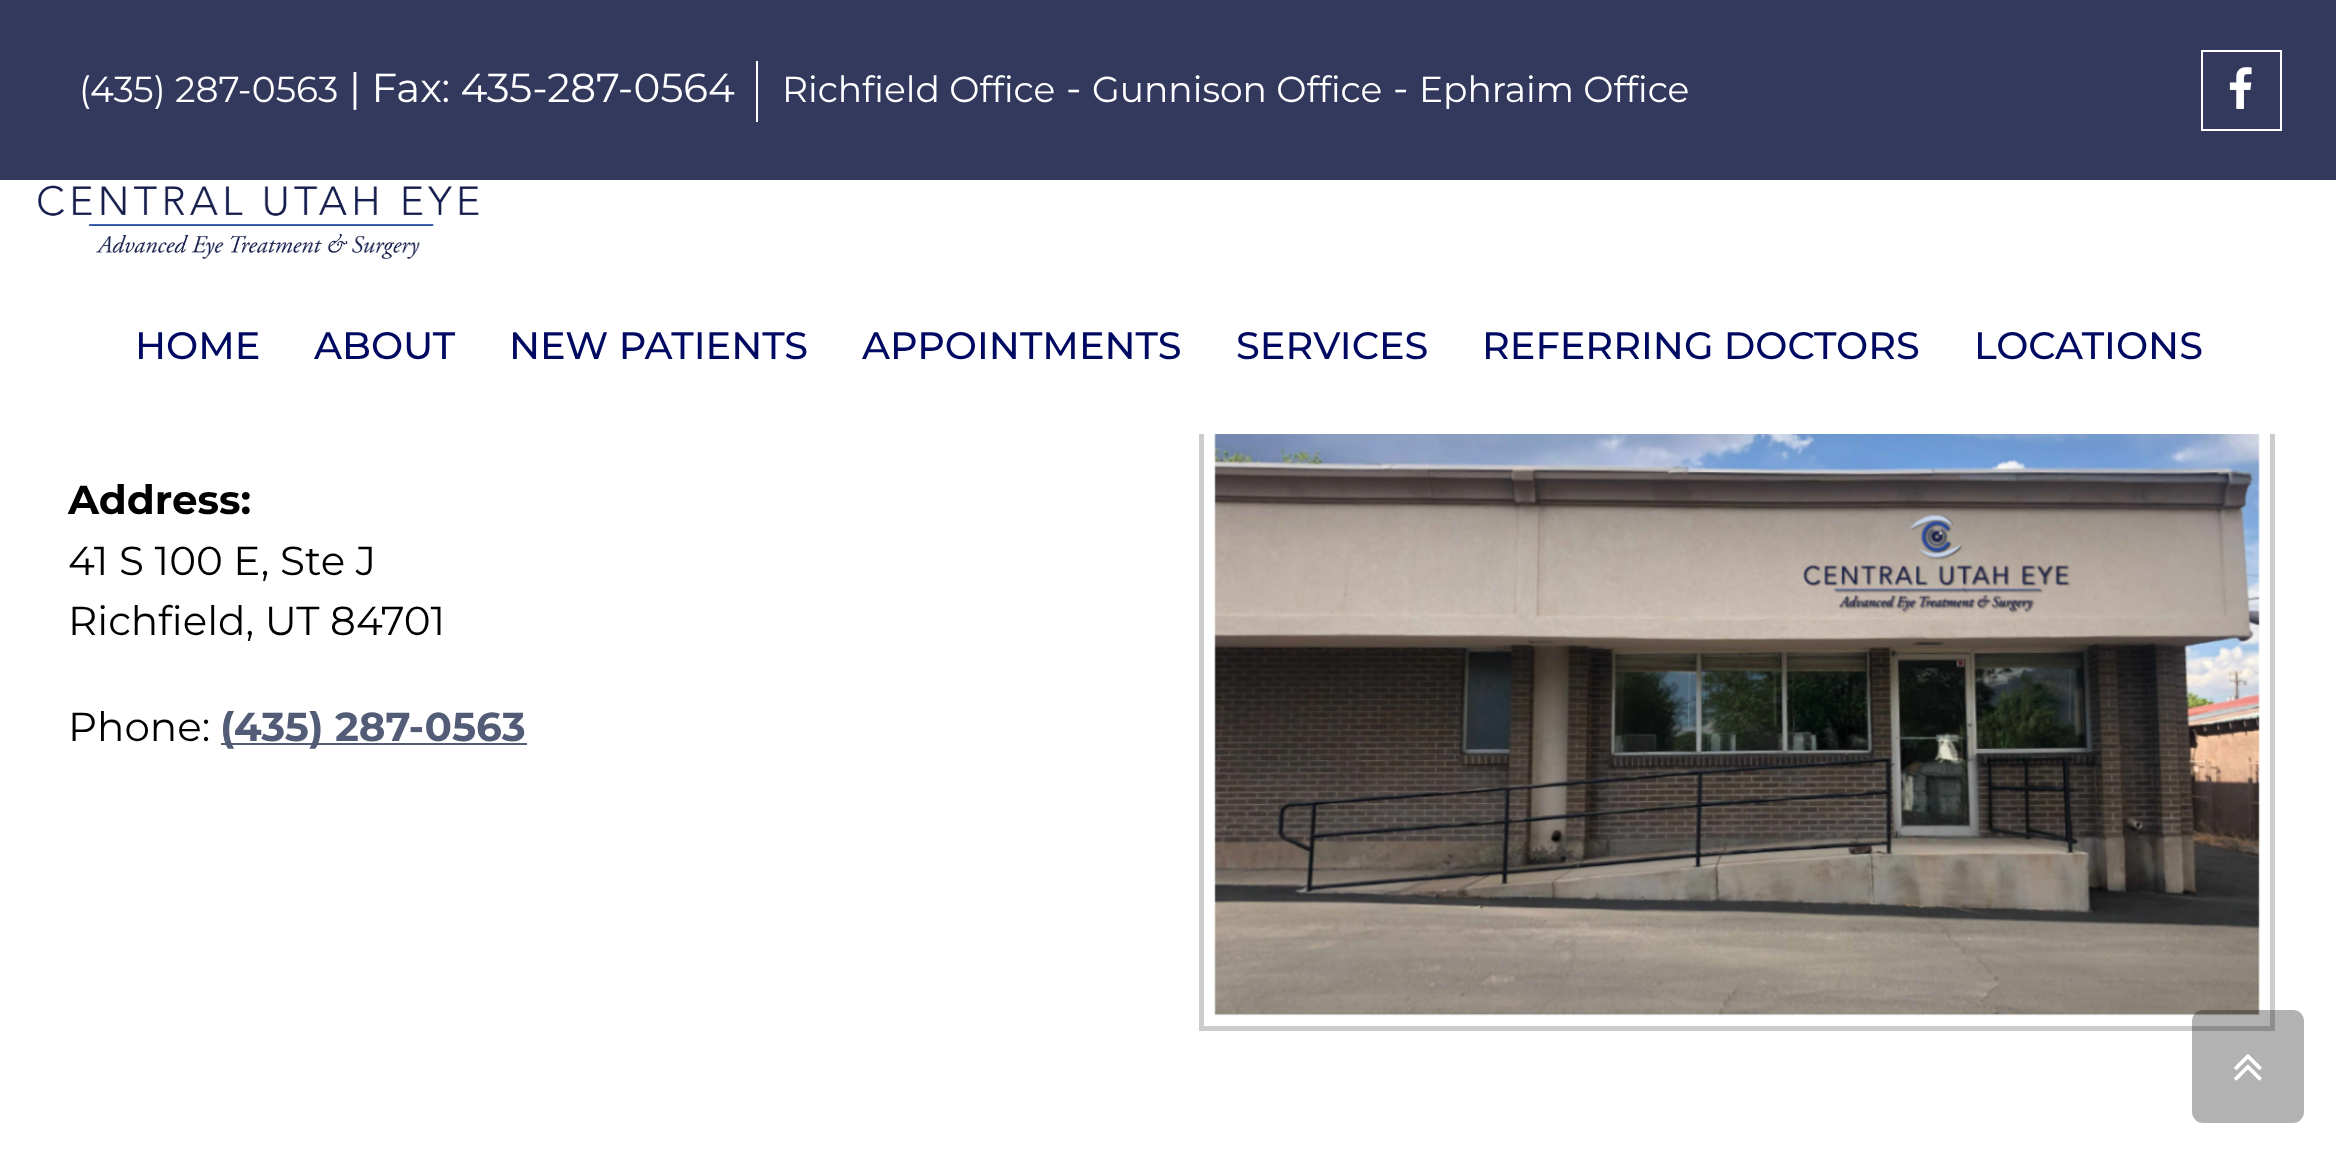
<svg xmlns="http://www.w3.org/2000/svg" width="2336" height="1156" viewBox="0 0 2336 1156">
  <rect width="100%" height="100%" fill="#fff"/>
  <path d="M0 0h2336v180H0z" fill="#33395d"/>
  <path d="M756 61h2v61H756z" fill="#fff"/>
  <path d="M2202 51h79v79H2202z" fill="none" stroke="#fff" stroke-width="2"/>
  <image x="2229" y="67" width="23" height="42" href="img/1.png"/>
  <image x="1214" y="434" width="1046" height="582" href="img/3.png"/>
  <path d="M1201.5 313.5h1071v715H1201.5z" fill="none" stroke="#ccc" stroke-width="5"/>
  <path d="M1199 311h1076v123H1199z" fill="#fff"/>
  <image x="38" y="185" width="441" height="74" href="img/2.png"/>
  <path d="M221 743h306v2H221z" fill="#535c77"/>
  <rect x="2192" y="1010" width="112" height="113" rx="11" fill="#0000004d"/>
  <image x="2234" y="1054" width="28" height="27" href="img/4.png"/>
  <text x="79" y="102" font-family="Montserrat" font-size="36" fill="#fff">(435) 287-0563</text>
  <text x="349" y="102" font-family="Montserrat" font-size="40.5" fill="#fff">| Fax: 435-287-0564</text>
  <text x="782" y="102" font-family="Montserrat" font-size="36" fill="#fff">Richfield Office</text>
  <text x="1066" y="102" font-family="Montserrat" font-size="40.5" fill="#fff">-</text>
  <text x="1092" y="102" font-family="Montserrat" font-size="36" fill="#fff">Gunnison Office</text>
  <text x="1393" y="102" font-family="Montserrat" font-size="40.5" fill="#fff">-</text>
  <text x="1419" y="102" font-family="Montserrat" font-size="36" fill="#fff">Ephraim Office</text>
  <g font-family="Montserrat" font-size="38.25" font-weight="500" fill="#000961">
    <text x="135" y="359">HOME</text>
    <text x="314" y="359">ABOUT</text>
    <text x="509" y="359">NEW PATIENTS</text>
    <text x="862" y="359">APPOINTMENTS</text>
    <text x="1236" y="359">SERVICES</text>
    <text x="1482" y="359">REFERRING DOCTORS</text>
    <text x="1974" y="359">LOCATIONS</text>
  </g>
  <text x="68" y="514" font-family="Montserrat" font-size="40.5" font-weight="bold" fill="#000">Address:</text>
  <g font-family="Montserrat" font-size="40.5" fill="#000">
    <text x="68" y="575">41 S 100 E, Ste J</text>
    <text x="68" y="635">Richfield, UT 84701</text>
    <text x="68" y="741">Phone:</text>
  </g>
  <text x="220" y="741" font-family="Montserrat" font-size="40.5" font-weight="bold" fill="#535c77">(435) 287-0563</text>
</svg>
